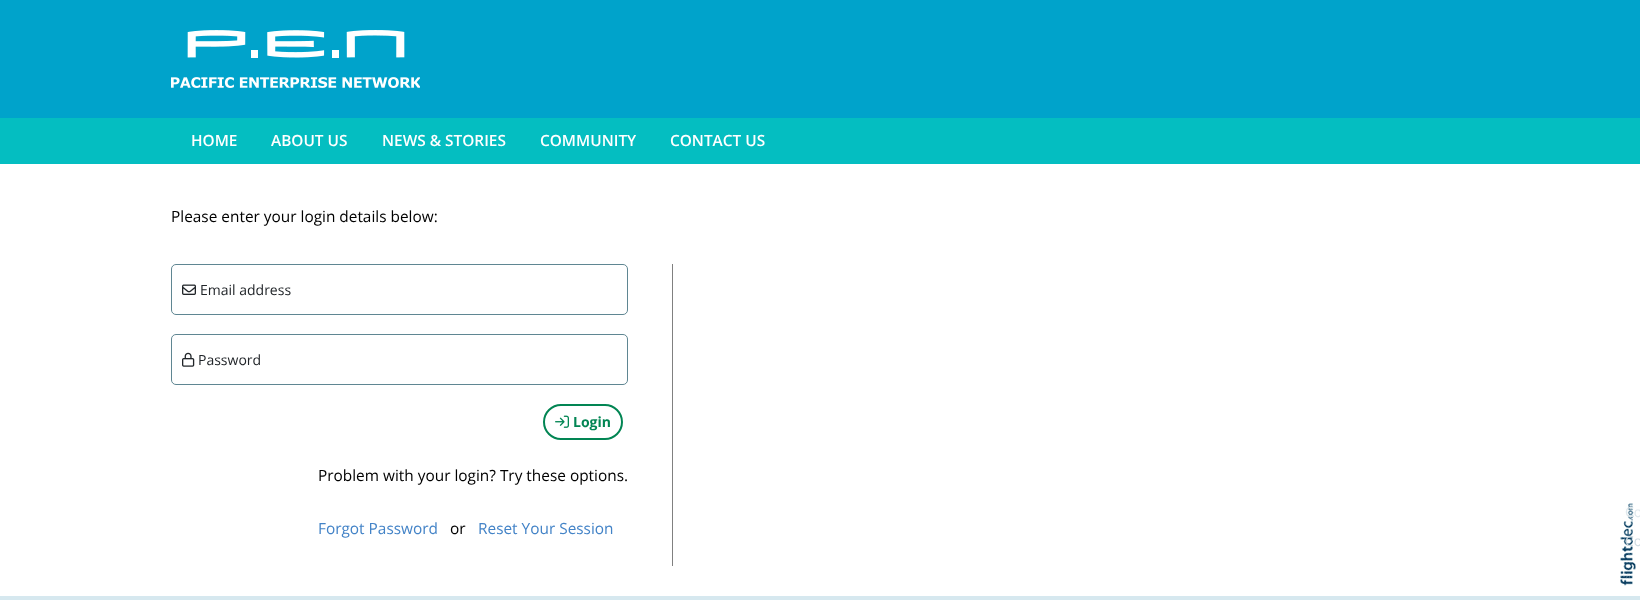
<svg xmlns="http://www.w3.org/2000/svg" width="1640" height="600" viewBox="0 0 1640 600">
  <rect width="100%" height="100%" fill="#fff"/>
  <path d="M0 0h1640v118H0z" fill="#00a3cb"/>
  <image x="171" y="30" width="249" height="58" href="img/1.png"/>
  <path d="M0 118h1640v46H0z" fill="#04bec1"/>
  <rect x="171.5" y="264.5" width="456" height="50" rx="4.5" fill="none" stroke="#5f8692"/>
  <image x="182" y="284" width="14" height="11" href="img/2.png"/>
  <rect x="171.5" y="334.5" width="456" height="50" rx="4.5" fill="none" stroke="#5f8692"/>
  <image x="182" y="352" width="13" height="15" href="img/3.png"/>
  <rect x="544" y="405" width="78" height="34" rx="17" fill="none" stroke="#028553" stroke-width="2"/>
  <image x="555" y="415" width="14" height="13" href="img/4.png"/>
  <path d="M672 264h1v302H672z" fill="#808080"/>
  <image x="1620" y="503" width="16" height="83" href="img/5.png"/>
  <path d="M0 596h1640v4H0z" fill="#d6e8ef"/>
  <g font-family="Open Sans" font-size="15.4" font-weight="600" fill="#fff">
    <text x="191" y="146">HOME</text>
    <text x="271" y="146">ABOUT US</text>
    <text x="382" y="146">NEWS &amp; STORIES</text>
    <text x="540" y="146">COMMUNITY</text>
    <text x="670" y="146">CONTACT US</text>
  </g>
  <text x="171" y="222" font-family="Open Sans" font-size="15.4" fill="#000">Please enter your login details below:</text>
  <g font-family="Open Sans" font-size="14" fill="#212529">
    <text x="200" y="295">Email address</text>
    <text x="198" y="365">Password</text>
  </g>
  <text x="573" y="427" font-family="Open Sans" font-size="14" font-weight="bold" fill="#028553">Login</text>
  <text x="318" y="481" font-family="Open Sans" font-size="15.4" fill="#000">Problem with your login? Try these options.</text>
  <text x="318" y="534" font-family="Open Sans" font-size="15.4" fill="#4383c7">Forgot Password</text>
  <text x="450" y="534" font-family="Open Sans" font-size="15.4" fill="#000">or</text>
  <text x="478" y="534" font-family="Open Sans" font-size="15.4" fill="#4383c7">Reset Your Session</text>
  <text x="1625" y="517" font-family="Open Sans" font-size="14" fill="#e0e8ec">Co</text>
  <text x="1625" y="546" font-family="Open Sans" font-size="14" fill="#cfdae1">Co</text>
</svg>
